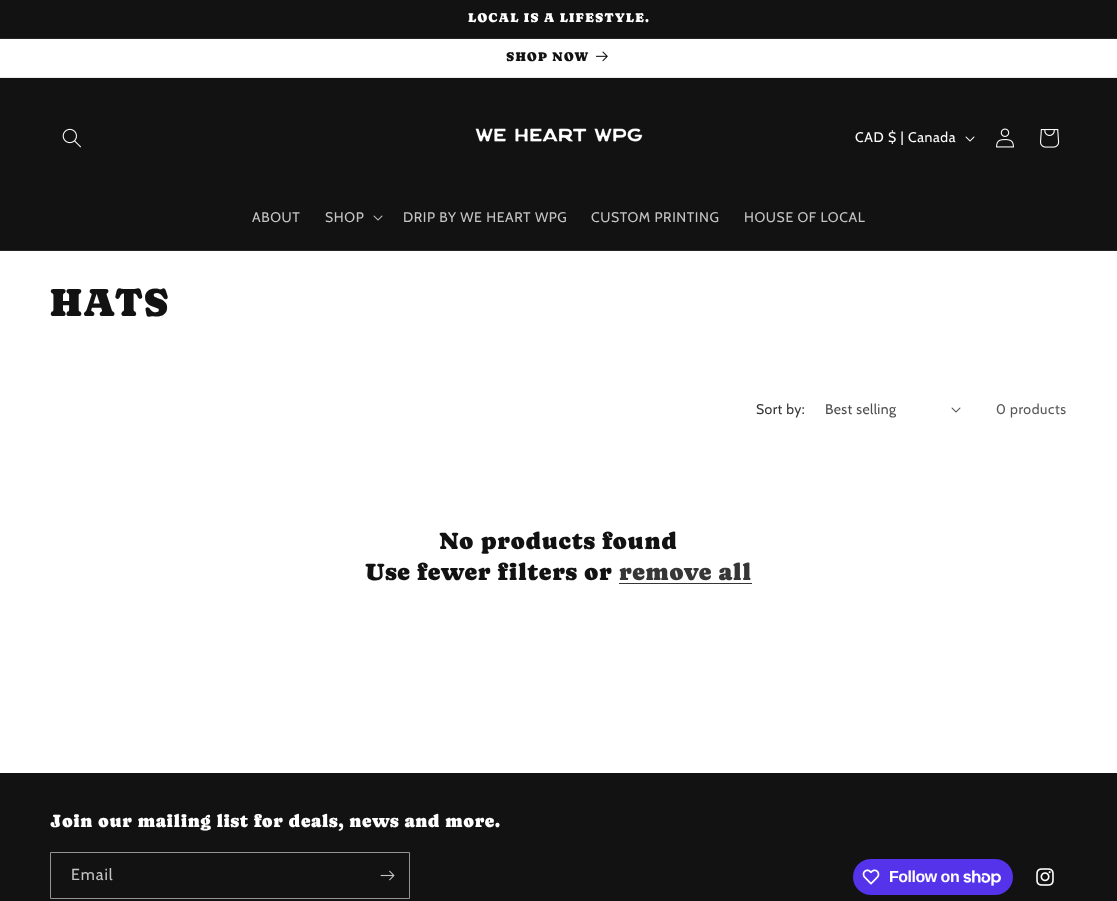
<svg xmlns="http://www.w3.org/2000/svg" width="1117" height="901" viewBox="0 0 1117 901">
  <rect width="100%" height="100%" fill="#fff"/>
  <path d="M0 0h1117v38H0z" fill="#121212"/>
  <path d="M0 38h1117v1H0z" fill="#252525"/>
  <path d="M0 77h1117v1H0z" fill="#ececec"/>
  <image x="596" y="51" width="12" height="11" href="img/1.png"/>
  <path d="M0 78h1117v172H0z" fill="#121212"/>
  <path d="M0 250h1117v1H0z" fill="#252525"/>
  <image x="62" y="128" width="19" height="20" href="img/2.png"/>
  <image x="475" y="128" width="168" height="14" href="img/3.png"/>
  <image x="965" y="136" width="10" height="6" href="img/4.png"/>
  <image x="996" y="128" width="18" height="20" href="img/5.png"/>
  <image x="1040" y="129" width="20" height="19" href="img/6.png"/>
  <image x="373" y="215" width="10" height="6" href="img/7.png"/>
  <image x="951" y="407" width="10" height="6" href="img/8.png"/>
  <path d="M619 583h133v1H619z" fill="#363636"/>
  <path d="M0 773h1117v128H0z" fill="#121212"/>
  <path d="M50.5 852.5h359v46H50.5z" fill="none" stroke="#949494"/>
  <image x="380" y="870" width="15" height="11" href="img/9.png"/>
  <rect x="853" y="859" width="160" height="36" rx="18" fill="#5433eb"/>
  <image x="862" y="869" width="18" height="16" href="img/10.png"/>
  <image x="963" y="870" width="38" height="16" href="img/11.png"/>
  <image x="1036" y="868" width="18" height="18" href="img/12.png"/>
  <text x="468" y="22" font-family="Caprasimo" font-size="13" letter-spacing="1" fill="#fff">LOCAL IS A LIFESTYLE.</text>
  <text x="506" y="61" font-family="Caprasimo" font-size="13" letter-spacing="1" fill="#121212">SHOP NOW</text>
  <text x="855" y="142" font-family="Cabin" font-size="14" letter-spacing="0.6" fill="#fff">CAD $ | Canada</text>
  <g font-family="Cabin" font-size="14" letter-spacing="0.6" fill="#c4c4c4">
    <text x="252" y="222">ABOUT</text>
    <text x="325" y="222">SHOP</text>
    <text x="403" y="222">DRIP BY WE HEART WPG</text>
    <text x="591" y="222">CUSTOM PRINTING</text>
    <text x="744" y="222">HOUSE OF LOCAL</text>
  </g>
  <text x="50" y="316" font-family="Caprasimo" font-size="40" letter-spacing="0.6" fill="#121212">HATS</text>
  <text x="756" y="414" font-family="Cabin" font-size="14" letter-spacing="0.4" fill="#363636">Sort by:</text>
  <text x="825" y="414" font-family="Cabin" font-size="14" letter-spacing="0.4" fill="#4d4d4d">Best selling</text>
  <text x="996" y="414" font-family="Cabin" font-size="14" letter-spacing="0.6" fill="#595959">0 products</text>
  <g font-family="Caprasimo" font-size="24" letter-spacing="0.6" fill="#121212">
    <text x="439" y="549">No products found</text>
    <text x="365" y="580">Use fewer filters or</text>
  </g>
  <text x="619" y="580" font-family="Caprasimo" font-size="24" letter-spacing="0.6" fill="#363636">remove all</text>
  <text x="50" y="827" font-family="Caprasimo" font-size="18" letter-spacing="0.6" fill="#fff">Join our mailing list for deals, news and more.</text>
  <text x="71" y="880" font-family="Cabin" font-size="16" letter-spacing="1" fill="#c4c4c4">Email</text>
  <text x="889" y="882" font-family="Liberation Sans" font-size="16" font-weight="bold" letter-spacing="-0.5" fill="#fff">Follow on</text>
</svg>
